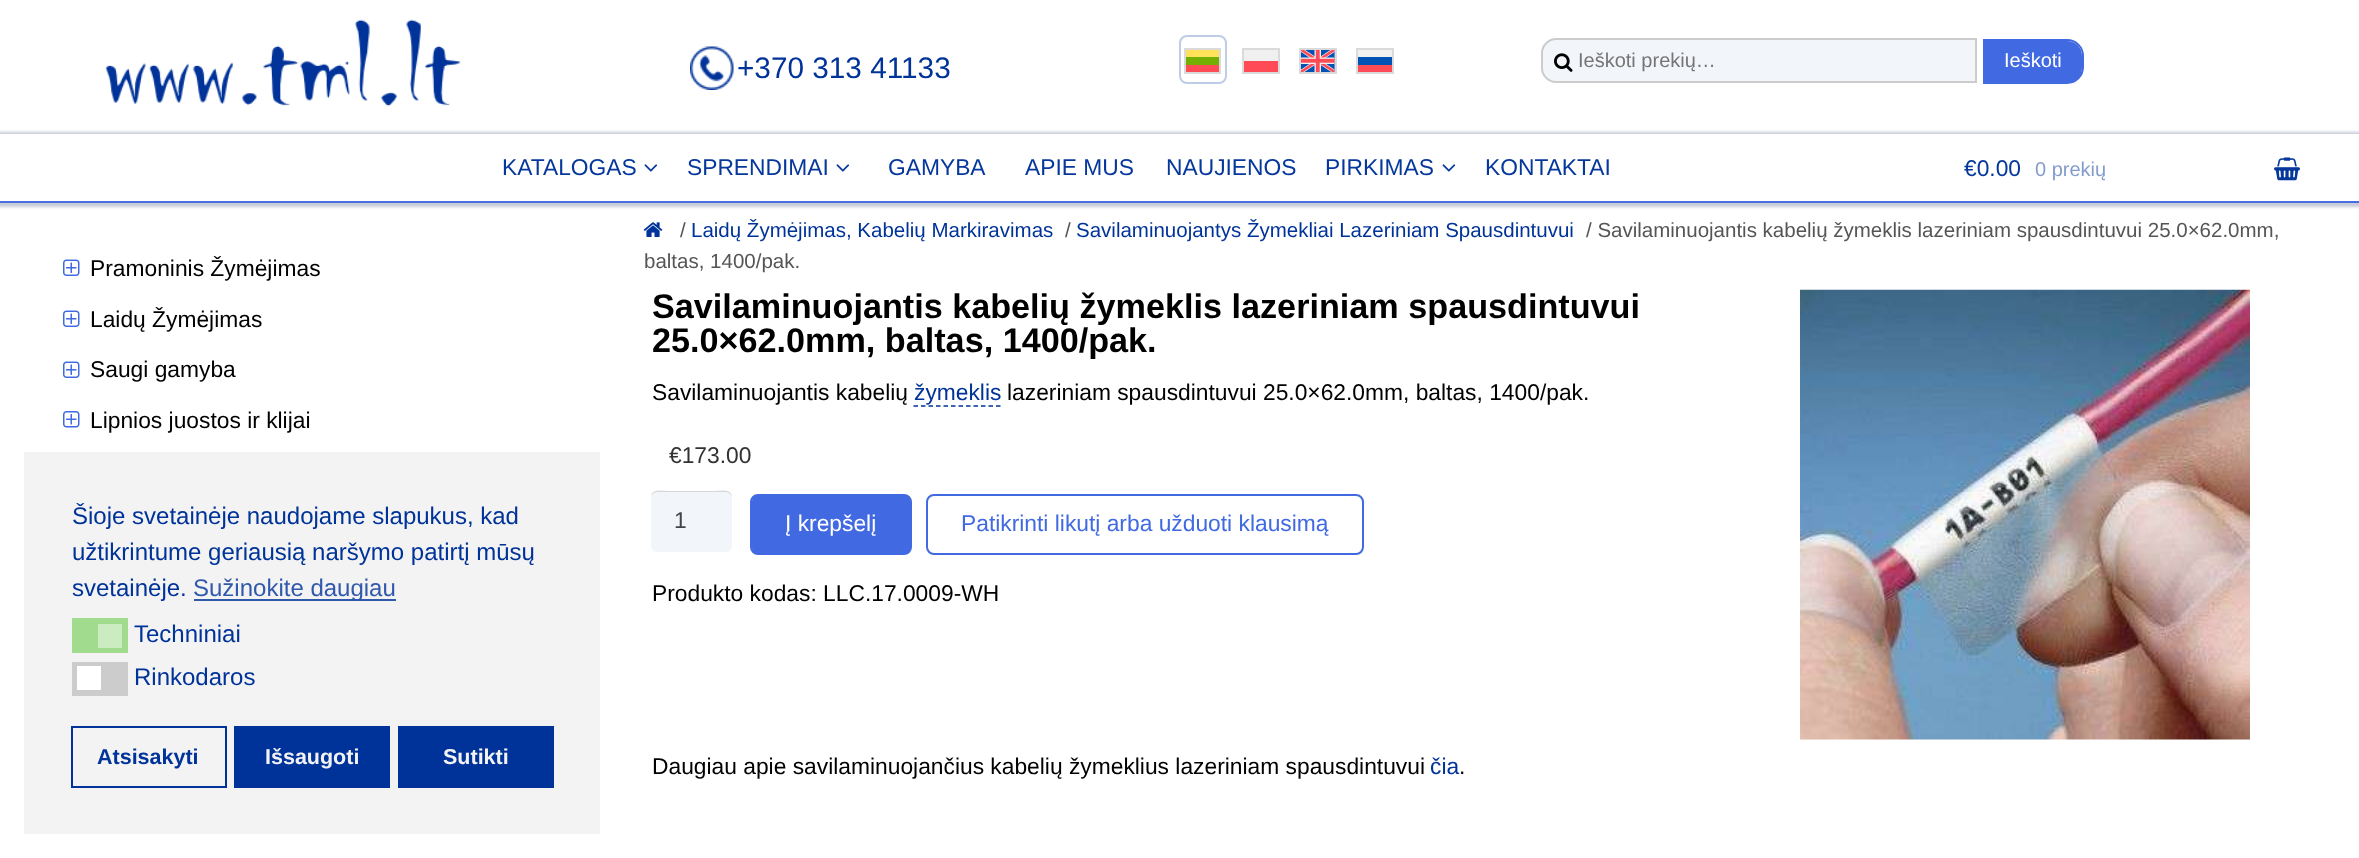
<svg xmlns="http://www.w3.org/2000/svg" width="2359" height="858" viewBox="0 0 2359 858">
  <defs>
    <clipPath id="clip1"><path d="M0 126H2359V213H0ZM-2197 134H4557V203H-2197Z" clip-rule="evenodd"/></clipPath>
  </defs>
  <rect width="100%" height="100%" fill="#fff"/>
  <image x="105" y="19" width="356" height="88" href="img/1.png"/>
  <image x="690" y="46" width="44" height="44" href="img/2.png"/>
  <path d="M1186 50h33v7H1186z" fill="#ffe15a"/>
  <path d="M1186 57h33v8H1186z" fill="#73af00"/>
  <path d="M1186 65h33v7H1186z" fill="#ff4b55"/>
  <path d="M1185 49h35v24H1185z" fill="none" stroke="#dadada" stroke-width="2"/>
  <rect x="1180" y="36" width="46" height="47" rx="7" fill="none" stroke="#bfcce6" stroke-width="2"/>
  <path d="M1244 50h34v11H1244z" fill="#f0f0f0"/>
  <path d="M1244 61h34v11H1244z" fill="#ff4b55"/>
  <path d="M1243 49h36v24H1243z" fill="none" stroke="#dadada" stroke-width="2"/>
  <image x="1301" y="50" width="34" height="22" href="img/3.png"/>
  <path d="M1300 49h36v24H1300z" fill="none" stroke="#dadada" stroke-width="2"/>
  <path d="M1358 50h34v7H1358z" fill="#f0f0f0"/>
  <path d="M1358 57h34v8H1358z" fill="#0052b4"/>
  <path d="M1358 65h34v7H1358z" fill="#ff4b55"/>
  <path d="M1357 49h36v24H1357z" fill="none" stroke="#dadada" stroke-width="2"/>
  <path d="M1556 39H1976V82H1556C1548.5 82 1542 75.5 1542 68V53C1542 45.5 1548.5 39 1556 39Z" fill="#f2f5fa" stroke="#ccc" stroke-width="2"/>
  <image x="1554" y="53" width="19" height="19" href="img/4.png"/>
  <path d="M1985 41H2067C2075.5 41 2082 47.5 2082 56V68C2082 76.5 2075.5 83 2067 83H1985Z" fill="#4169e1"/>
  <path d="M1984 40H2067C2076 40 2083 47 2083 56V67C2083 76 2076 83 2067 83H1984Z" fill="none" stroke="#4169e1" stroke-width="2"/>
  <g clip-path="url(#clip1)">
    <path d="M-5 132h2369v75H-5z" fill="#1f2e5c40" filter="blur(1.5px)"/>
  </g>
  <path d="M0 201h2359v2H0z" fill="#466de2"/>
  <image x="644" y="164" width="14" height="8" href="img/5.png"/>
  <image x="836" y="164" width="14" height="8" href="img/5.png"/>
  <image x="1442" y="164" width="14" height="8" href="img/5.png"/>
  <image x="2274" y="157" width="26" height="24" href="img/6.png"/>
  <image x="63" y="259" width="17" height="17" href="img/7.png"/>
  <image x="63" y="310" width="17" height="17" href="img/7.png"/>
  <image x="63" y="361" width="17" height="17" href="img/7.png"/>
  <image x="63" y="411" width="17" height="17" href="img/8.png"/>
  <image x="643" y="222" width="20" height="15" href="img/9.png"/>
  <path d="M913.5 406H1000.5" fill="none" stroke="#039" stroke-width="1.5" stroke-dasharray="4.5 3"/>
  <rect x="651" y="491" width="81" height="61" rx="6" fill="#f2f5fa"/>
  <path d="M657 492H726C729 492 732 495 732 498C732 488 721 491 714 491H668C662 491 651 488 651 498C651 495 654 492 657 492Z" fill="#0000001f"/>
  <rect x="752" y="495" width="159" height="59" rx="6" fill="#4169e1"/>
  <rect x="751" y="495" width="160" height="59" rx="7" fill="none" stroke="#4169e1" stroke-width="2"/>
  <rect x="927" y="495" width="436" height="59" rx="7" fill="none" stroke="#4169e1" stroke-width="2"/>
  <image x="1800" y="289" width="450" height="451" href="img/10.png"/>
  <path d="M24 452h576v382H24z" fill="#f3f3f3"/>
  <path d="M194 599h202v2H194z" fill="#3159ab"/>
  <path d="M72 618h56v35H72z" fill="#a0db8e"/>
  <path d="M98 624h24v24H98z" fill="#cbebc1"/>
  <path d="M72 662h56v34H72z" fill="#ccc"/>
  <path d="M77 666h24v24H77z" fill="#fff"/>
  <path d="M72 727h154v60H72z" fill="none" stroke="#039" stroke-width="2"/>
  <path d="M236 728h152v58H236z" fill="#039"/>
  <path d="M235 727h154v60H235z" fill="none" stroke="#039" stroke-width="2"/>
  <path d="M400 728h152v58H400z" fill="#039"/>
  <path d="M399 727h154v60H399z" fill="none" stroke="#039" stroke-width="2"/>
  <text x="737" y="78" font-family="Liberation Sans" font-size="29.75" fill="#039">+370 313 41133</text>
  <text x="1578" y="67" font-family="Liberation Sans" font-size="20" fill="#757575">Ieškoti prekių…</text>
  <text x="2004" y="67" font-family="Liberation Sans" font-size="20" fill="#fff">Ieškoti</text>
  <g font-family="Liberation Sans" font-size="22.8" fill="#06389c">
    <text x="502" y="175">KATALOGAS</text>
    <text x="687" y="175">SPRENDIMAI</text>
    <text x="888" y="175">GAMYBA</text>
    <text x="1025" y="175">APIE MUS</text>
    <text x="1166" y="175">NAUJIENOS</text>
    <text x="1325" y="175">PIRKIMAS</text>
    <text x="1485" y="175">KONTAKTAI</text>
    <text x="1964" y="176">€0.00</text>
  </g>
  <text x="2035" y="176" font-family="Liberation Sans" font-size="20" fill="#839ccd">0 prekių</text>
  <g font-family="Liberation Sans" font-size="22.8" fill="#000">
    <text x="90" y="276">Pramoninis Žymėjimas</text>
    <text x="90" y="327">Laidų Žymėjimas</text>
    <text x="90" y="377">Saugi gamyba</text>
    <text x="90" y="428">Lipnios juostos ir klijai</text>
  </g>
  <text x="680" y="237" font-family="Liberation Sans" font-size="20.5" fill="#555">/</text>
  <text x="691" y="237" font-family="Liberation Sans" font-size="20.5" fill="#039">Laidų Žymėjimas, Kabelių Markiravimas</text>
  <text x="1065" y="237" font-family="Liberation Sans" font-size="20.5" fill="#555">/</text>
  <text x="1076" y="237" font-family="Liberation Sans" font-size="20.5" fill="#039">Savilaminuojantys Žymekliai Lazeriniam Spausdintuvui</text>
  <g font-family="Liberation Sans" font-size="20.5" fill="#555">
    <text x="1586" y="237">/ Savilaminuojantis kabelių žymeklis lazeriniam spausdintuvui 25.0×62.0mm,</text>
    <text x="644" y="268">baltas, 1400/pak.</text>
  </g>
  <g font-family="Liberation Sans" font-size="34.2" font-weight="bold" fill="#000">
    <text x="652" y="318">Savilaminuojantis kabelių žymeklis lazeriniam spausdintuvui</text>
    <text x="652" y="352">25.0×62.0mm, baltas, 1400/pak.</text>
  </g>
  <text x="652" y="400" font-family="Liberation Sans" font-size="22.8" fill="#000">Savilaminuojantis kabelių</text>
  <text x="914" y="400" font-family="Liberation Sans" font-size="22.8" fill="#039">žymeklis</text>
  <text x="1007" y="400" font-family="Liberation Sans" font-size="22.8" fill="#000">lazeriniam spausdintuvui 25.0×62.0mm, baltas, 1400/pak.</text>
  <text x="669" y="463" font-family="Liberation Sans" font-size="22.8" fill="#333">€173.00</text>
  <text x="674" y="528" font-family="Liberation Sans" font-size="22.8" fill="#43454b">1</text>
  <text x="785" y="531" font-family="Liberation Sans" font-size="22.8" fill="#fff">Į krepšelį</text>
  <text x="961" y="531" font-family="Liberation Sans" font-size="22.8" fill="#4169e1">Patikrinti likutį arba užduoti klausimą</text>
  <g font-family="Liberation Sans" font-size="22.8" fill="#000">
    <text x="652" y="601">Produkto kodas: LLC.17.0009-WH</text>
    <text x="652" y="774">Daugiau apie savilaminuojančius kabelių žymeklius lazeriniam spausdintuvui</text>
  </g>
  <text x="1430" y="774" font-family="Liberation Sans" font-size="22.8" fill="#039">čia</text>
  <text x="1459" y="774" font-family="Liberation Sans" font-size="22.8" fill="#000">.</text>
  <g font-family="Liberation Sans" font-size="24" fill="#039">
    <text x="72" y="524">Šioje svetainėje naudojame slapukus, kad</text>
    <text x="72" y="560">užtikrintume geriausią naršymo patirtį mūsų</text>
    <text x="72" y="596">svetainėje.</text>
  </g>
  <text x="193" y="596" font-family="Liberation Sans" font-size="24" fill="#3159ab">Sužinokite daugiau</text>
  <g font-family="Liberation Sans" font-size="24" fill="#039">
    <text x="134" y="642">Techniniai</text>
    <text x="134" y="685">Rinkodaros</text>
  </g>
  <text x="97" y="764" font-family="Liberation Sans" font-size="21.5" font-weight="bold" fill="#039">Atsisakyti</text>
  <g font-family="Liberation Sans" font-size="21.5" font-weight="bold" fill="#f3f3f3">
    <text x="265" y="764">Išsaugoti</text>
    <text x="443" y="764">Sutikti</text>
  </g>
</svg>
